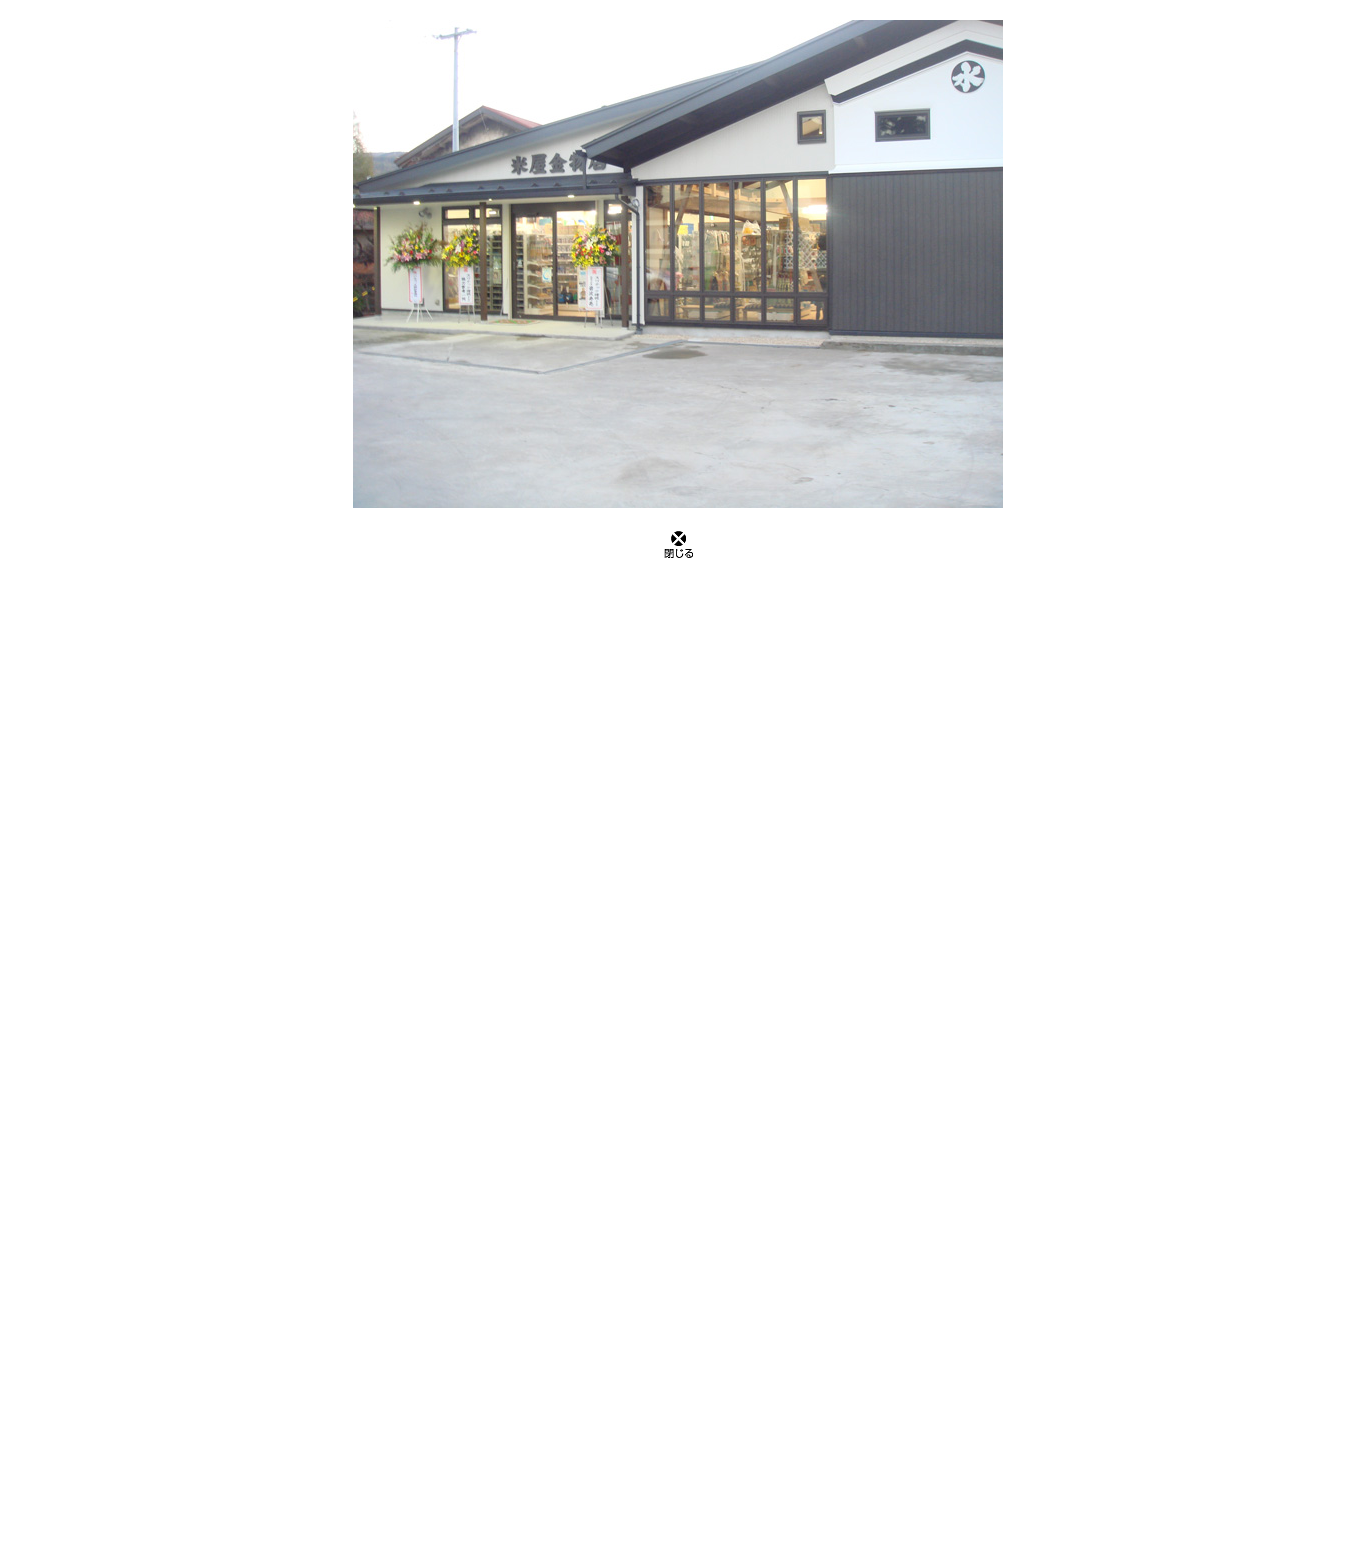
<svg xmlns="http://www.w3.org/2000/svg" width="1356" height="1543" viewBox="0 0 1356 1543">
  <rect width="100%" height="100%" fill="#fff"/>
  <image x="353" y="20" width="650" height="488" href="img/1.png"/>
  <image x="664" y="531" width="29" height="27" href="img/2.png"/>
</svg>
